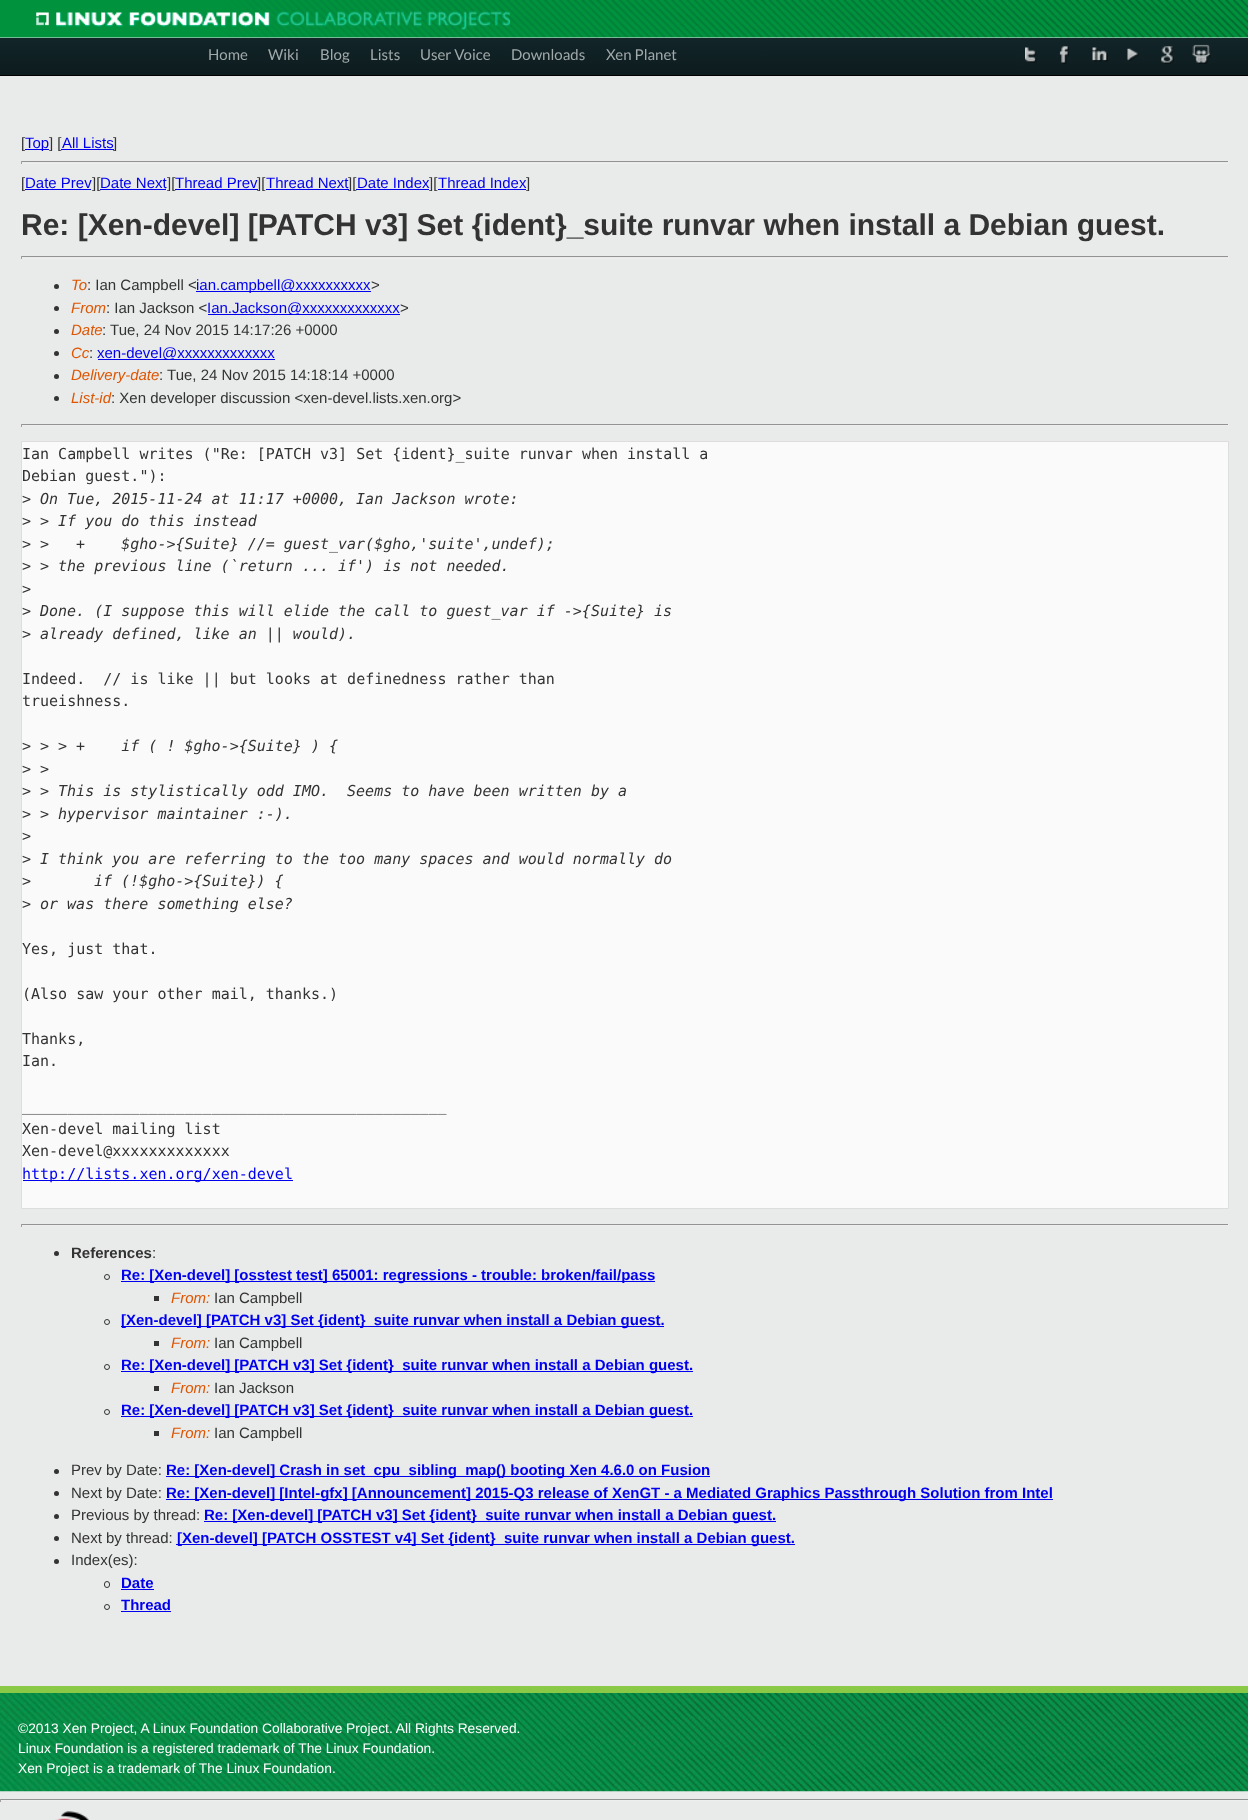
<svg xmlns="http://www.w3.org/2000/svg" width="1248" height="1820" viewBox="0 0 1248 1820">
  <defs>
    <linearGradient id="g1" gradientUnits="userSpaceOnUse" x1="624" y1="37" x2="624" y2="75"><stop offset="0" stop-color="#122529"/><stop offset="1" stop-color="#0d1b1e"/></linearGradient>
  </defs>
  <rect width="100%" height="100%" fill="#e9eaea"/>
  <image x="0" y="0" width="1248" height="38" href="img/1.png"/>
  <image x="36" y="11" width="474" height="19" href="img/2.png"/>
  <path d="M0 38h1248v37H0z" fill="url(#g1)"/>
  <path d="M0 75h1248v1H0z" fill="#000"/>
  <image x="1025" y="47" width="12" height="16" href="img/3.png"/>
  <image x="1059" y="46" width="10" height="18" href="img/4.png"/>
  <image x="1092" y="47" width="16" height="15" href="img/5.png"/>
  <image x="1127" y="48" width="12" height="13" href="img/6.png"/>
  <image x="1161" y="46" width="13" height="18" href="img/7.png"/>
  <image x="1192" y="44" width="19" height="20" href="img/8.png"/>
  <path d="M25 149h24v1H25z" fill="#00e"/>
  <path d="M21 161h1208v1H21z" fill="#939393"/>
  <path d="M1228 161h1v3H1228z" fill="#eee"/>
  <path d="M21 163h1208v1H21z" fill="#eee"/>
  <path d="M21 161h1v3H21z" fill="#9f9f9f"/>
  <path d="M25 189h66v1H25z" fill="#00e"/>
  <path d="M100 189h66v1H100z" fill="#00e"/>
  <path d="M175 189h83v1H175z" fill="#00e"/>
  <path d="M266 189h83v1H266z" fill="#00e"/>
  <path d="M438 189h88v1H438z" fill="#00e"/>
  <path d="M21 256h1208v1H21z" fill="#939393"/>
  <path d="M1228 256h1v3H1228z" fill="#eee"/>
  <path d="M21 258h1208v1H21z" fill="#eee"/>
  <path d="M21 256h1v3H21z" fill="#9f9f9f"/>
  <circle cx="56.5" cy="286.5" r="2.5" fill="#333"/>
  <path d="M196 291h175v1H196z" fill="#00e"/>
  <circle cx="56.5" cy="308.5" r="2.5" fill="#333"/>
  <path d="M208 314h192v1H208z" fill="#00e"/>
  <circle cx="56.5" cy="331.5" r="2.5" fill="#333"/>
  <circle cx="56.5" cy="353.5" r="2.5" fill="#333"/>
  <path d="M98 359h177v1H98z" fill="#00e"/>
  <circle cx="56.5" cy="376.5" r="2.5" fill="#333"/>
  <circle cx="56.5" cy="398.5" r="2.5" fill="#333"/>
  <path d="M21 424h1208v1H21z" fill="#939393"/>
  <path d="M1228 424h1v3H1228z" fill="#eee"/>
  <path d="M21 425h1208v1H21z" fill="#eee"/>
  <path d="M21 424h1v3H21z" fill="#9f9f9f"/>
  <path d="M21.5 441.5h1207v767H21.5z" fill="#fafafa" stroke="#ddd"/>
  <path d="M23 1180h270v1H23z" fill="#00e"/>
  <path d="M21 1224h1208v1H21z" fill="#939393"/>
  <path d="M1228 1224h1v3H1228z" fill="#eee"/>
  <path d="M21 1225h1208v1H21z" fill="#eee"/>
  <path d="M21 1224h1v3H21z" fill="#9f9f9f"/>
  <circle cx="56.5" cy="1253.5" r="2.5" fill="#333"/>
  <circle cx="107" cy="1277" r="2.5" fill="none" stroke="#333"/>
  <path d="M121 1281h534v1H121z" fill="#00e"/>
  <path d="M154 1296h5v5H154z" fill="#333"/>
  <circle cx="107" cy="1322" r="2.5" fill="none" stroke="#333"/>
  <path d="M121 1326h543v1H121z" fill="#00e"/>
  <path d="M154 1341h5v5H154z" fill="#333"/>
  <circle cx="107" cy="1367" r="2.5" fill="none" stroke="#333"/>
  <path d="M121 1371h572v1H121z" fill="#00e"/>
  <path d="M154 1386h5v5H154z" fill="#333"/>
  <circle cx="107" cy="1412" r="2.5" fill="none" stroke="#333"/>
  <path d="M121 1416h572v1H121z" fill="#00e"/>
  <path d="M154 1431h5v5H154z" fill="#333"/>
  <circle cx="56.5" cy="1471.5" r="2.5" fill="#333"/>
  <path d="M166 1476h544v1H166z" fill="#00e"/>
  <circle cx="56.5" cy="1493.5" r="2.5" fill="#333"/>
  <path d="M166 1499h887v1H166z" fill="#00e"/>
  <circle cx="56.5" cy="1516.5" r="2.5" fill="#333"/>
  <path d="M204 1521h572v1H204z" fill="#00e"/>
  <circle cx="56.5" cy="1538.5" r="2.5" fill="#333"/>
  <path d="M176 1544h619v1H176z" fill="#00e"/>
  <circle cx="56.5" cy="1561.5" r="2.5" fill="#333"/>
  <rect x="104.5" y="1581.5" width="5" height="6" rx="2.5" fill="none" stroke="#333"/>
  <path d="M121 1589h33v1H121z" fill="#00e"/>
  <circle cx="107" cy="1607" r="2.5" fill="none" stroke="#333"/>
  <path d="M121 1611h50v1H121z" fill="#00e"/>
  <image x="0" y="1693" width="1248" height="99" href="img/9.png"/>
  <path d="M0 1686h1248v7H0z" fill="#8ac945"/>
  <path d="M0 1799h1248v1H0z" fill="#939393"/>
  <path d="M0 1800h1248v1H0z" fill="#eee"/>
  <path d="M0 1799h1v3H0z" fill="#9f9f9f"/>
  <image x="55" y="1811" width="34" height="9" href="img/10.png"/>
  <g font-family="Lato" font-size="15" fill="#a1a9ab">
    <text x="208" y="60">Home</text>
    <text x="268" y="60">Wiki</text>
    <text x="320" y="60">Blog</text>
    <text x="370" y="60">Lists</text>
    <text x="420" y="60">User Voice</text>
    <text x="511" y="60">Downloads</text>
    <text x="606" y="60">Xen Planet</text>
  </g>
  <text x="21" y="148" font-family="Liberation Sans" font-size="15" fill="#333">[</text>
  <text x="25" y="148" font-family="Liberation Sans" font-size="15" fill="#00e">Top</text>
  <text x="49" y="148" font-family="Liberation Sans" font-size="15" fill="#333">] [</text>
  <text x="62" y="148" font-family="Liberation Sans" font-size="15" fill="#00e">All Lists</text>
  <path d="M61 149h53v1H61z" fill="#00e"/>
  <g font-family="Liberation Sans" font-size="15" fill="#333">
    <text x="113" y="148">]</text>
    <text x="21" y="188">[</text>
  </g>
  <text x="25" y="188" font-family="Liberation Sans" font-size="15" fill="#00e">Date Prev</text>
  <text x="92" y="188" font-family="Liberation Sans" font-size="15" fill="#333">][</text>
  <text x="100" y="188" font-family="Liberation Sans" font-size="15" fill="#00e">Date Next</text>
  <text x="167" y="188" font-family="Liberation Sans" font-size="15" fill="#333">][</text>
  <text x="175" y="188" font-family="Liberation Sans" font-size="15" fill="#00e">Thread Prev</text>
  <text x="257" y="188" font-family="Liberation Sans" font-size="15" fill="#333">][</text>
  <text x="266" y="188" font-family="Liberation Sans" font-size="15" fill="#00e">Thread Next</text>
  <text x="348" y="188" font-family="Liberation Sans" font-size="15" fill="#333">][</text>
  <text x="357" y="188" font-family="Liberation Sans" font-size="15" fill="#00e">Date Index</text>
  <path d="M356 189h73v1H356z" fill="#00e"/>
  <text x="429" y="188" font-family="Liberation Sans" font-size="15" fill="#333">][</text>
  <text x="438" y="188" font-family="Liberation Sans" font-size="15" fill="#00e">Thread Index</text>
  <text x="526" y="188" font-family="Liberation Sans" font-size="15" fill="#333">]</text>
  <text x="21" y="235" font-family="Liberation Sans" font-size="30" font-weight="bold" fill="#333">Re: [Xen-devel] [PATCH v3] Set {ident}_suite runvar when install a Debian guest.</text>
  <text x="71" y="290" font-family="Liberation Sans" font-size="15" font-style="italic" fill="#d50">To</text>
  <text x="87" y="290" font-family="Liberation Sans" font-size="15" fill="#333">: Ian Campbell &lt;</text>
  <text x="196" y="290" font-family="Liberation Sans" font-size="15" fill="#00e">ian.campbell@xxxxxxxxxx</text>
  <text x="371" y="290" font-family="Liberation Sans" font-size="15" fill="#333">&gt;</text>
  <text x="71" y="313" font-family="Liberation Sans" font-size="15" font-style="italic" fill="#d50">From</text>
  <text x="106" y="313" font-family="Liberation Sans" font-size="15" fill="#333">: Ian Jackson &lt;</text>
  <text x="207" y="313" font-family="Liberation Sans" font-size="15" fill="#00e">Ian.Jackson@xxxxxxxxxxxxx</text>
  <text x="400" y="313" font-family="Liberation Sans" font-size="15" fill="#333">&gt;</text>
  <text x="71" y="335" font-family="Liberation Sans" font-size="15" font-style="italic" fill="#d50">Date</text>
  <text x="102" y="335" font-family="Liberation Sans" font-size="15" fill="#333">: Tue, 24 Nov 2015 14:17:26 +0000</text>
  <text x="71" y="358" font-family="Liberation Sans" font-size="15" font-style="italic" fill="#d50">Cc</text>
  <text x="89" y="358" font-family="Liberation Sans" font-size="15" fill="#333">:</text>
  <text x="97" y="358" font-family="Liberation Sans" font-size="15" fill="#00e">xen-devel@xxxxxxxxxxxxx</text>
  <text x="71" y="380" font-family="Liberation Sans" font-size="15" font-style="italic" fill="#d50">Delivery-date</text>
  <text x="159" y="380" font-family="Liberation Sans" font-size="15" fill="#333">: Tue, 24 Nov 2015 14:18:14 +0000</text>
  <text x="71" y="403" font-family="Liberation Sans" font-size="15" font-style="italic" fill="#d50">List-id</text>
  <text x="111" y="403" font-family="Liberation Sans" font-size="15" fill="#333">: Xen developer discussion &lt;xen-devel.lists.xen.org&gt;</text>
  <g font-family="DejaVu Sans Mono" font-size="15" fill="#333">
    <text x="22" y="459">Ian Campbell writes ("Re: [PATCH v3] Set {ident}_suite runvar when install a</text>
    <text x="22" y="481">Debian guest."):</text>
    <text x="22" y="504">&gt;</text>
  </g>
  <text x="40" y="504" font-family="DejaVu Sans Mono" font-size="15" font-style="italic" fill="#333">On Tue, 2015-11-24 at 11:17 +0000, Ian Jackson wrote:</text>
  <text x="22" y="526" font-family="DejaVu Sans Mono" font-size="15" fill="#333">&gt;</text>
  <text x="40" y="526" font-family="DejaVu Sans Mono" font-size="15" font-style="italic" fill="#333">&gt; If you do this instead</text>
  <text x="22" y="549" font-family="DejaVu Sans Mono" font-size="15" fill="#333">&gt;</text>
  <text x="40" y="549" font-family="DejaVu Sans Mono" font-size="15" font-style="italic" fill="#333" xml:space="preserve">&gt;   +    $gho-&gt;{Suite} //= guest_var($gho,'suite',undef);</text>
  <text x="22" y="571" font-family="DejaVu Sans Mono" font-size="15" fill="#333">&gt;</text>
  <text x="40" y="571" font-family="DejaVu Sans Mono" font-size="15" font-style="italic" fill="#333">&gt; the previous line (`return ... if') is not needed.</text>
  <g font-family="DejaVu Sans Mono" font-size="15" fill="#333">
    <text x="22" y="594">&gt;</text>
    <text x="22" y="616">&gt;</text>
  </g>
  <text x="40" y="616" font-family="DejaVu Sans Mono" font-size="15" font-style="italic" fill="#333">Done. (I suppose this will elide the call to guest_var if -&gt;{Suite} is</text>
  <text x="22" y="639" font-family="DejaVu Sans Mono" font-size="15" fill="#333">&gt;</text>
  <text x="40" y="639" font-family="DejaVu Sans Mono" font-size="15" font-style="italic" fill="#333">already defined, like an || would).</text>
  <g font-family="DejaVu Sans Mono" font-size="15" fill="#333">
    <text x="22" y="684" xml:space="preserve">Indeed.  // is like || but looks at definedness rather than</text>
    <text x="22" y="706">trueishness.</text>
    <text x="22" y="751">&gt;</text>
  </g>
  <text x="40" y="751" font-family="DejaVu Sans Mono" font-size="15" font-style="italic" fill="#333" xml:space="preserve">&gt; &gt; +    if ( ! $gho-&gt;{Suite} ) {</text>
  <text x="22" y="774" font-family="DejaVu Sans Mono" font-size="15" fill="#333">&gt;</text>
  <text x="40" y="774" font-family="DejaVu Sans Mono" font-size="15" font-style="italic" fill="#333">&gt;</text>
  <text x="22" y="796" font-family="DejaVu Sans Mono" font-size="15" fill="#333">&gt;</text>
  <text x="40" y="796" font-family="DejaVu Sans Mono" font-size="15" font-style="italic" fill="#333" xml:space="preserve">&gt; This is stylistically odd IMO.  Seems to have been written by a</text>
  <text x="22" y="819" font-family="DejaVu Sans Mono" font-size="15" fill="#333">&gt;</text>
  <text x="40" y="819" font-family="DejaVu Sans Mono" font-size="15" font-style="italic" fill="#333">&gt; hypervisor maintainer :-).</text>
  <g font-family="DejaVu Sans Mono" font-size="15" fill="#333">
    <text x="22" y="841">&gt;</text>
    <text x="22" y="864">&gt;</text>
  </g>
  <text x="40" y="864" font-family="DejaVu Sans Mono" font-size="15" font-style="italic" fill="#333">I think you are referring to the too many spaces and would normally do</text>
  <text x="22" y="886" font-family="DejaVu Sans Mono" font-size="15" fill="#333">&gt;</text>
  <text x="94" y="886" font-family="DejaVu Sans Mono" font-size="15" font-style="italic" fill="#333">if (!$gho-&gt;{Suite}) {</text>
  <text x="22" y="909" font-family="DejaVu Sans Mono" font-size="15" fill="#333">&gt;</text>
  <text x="40" y="909" font-family="DejaVu Sans Mono" font-size="15" font-style="italic" fill="#333">or was there something else?</text>
  <g font-family="DejaVu Sans Mono" font-size="15" fill="#333">
    <text x="22" y="954">Yes, just that.</text>
    <text x="22" y="999">(Also saw your other mail, thanks.)</text>
    <text x="22" y="1044">Thanks,</text>
    <text x="22" y="1066">Ian.</text>
    <text x="22" y="1111">_______________________________________________</text>
    <text x="22" y="1134">Xen-devel mailing list</text>
    <text x="22" y="1156">Xen-devel@xxxxxxxxxxxxx</text>
  </g>
  <text x="22" y="1179" font-family="DejaVu Sans Mono" font-size="15" fill="#00e">http://lists.xen.org/xen-devel</text>
  <text x="71" y="1258" font-family="Liberation Sans" font-size="15" font-weight="bold" fill="#333">References</text>
  <text x="152" y="1258" font-family="Liberation Sans" font-size="15" fill="#333">:</text>
  <text x="121" y="1280" font-family="Liberation Sans" font-size="15" font-weight="bold" fill="#00e">Re: [Xen-devel] [osstest test] 65001: regressions - trouble: broken/fail/pass</text>
  <text x="171" y="1303" font-family="Liberation Sans" font-size="15" font-style="italic" fill="#d50">From:</text>
  <text x="214" y="1303" font-family="Liberation Sans" font-size="15" fill="#333">Ian Campbell</text>
  <text x="121" y="1325" font-family="Liberation Sans" font-size="15" font-weight="bold" fill="#00e">[Xen-devel] [PATCH v3] Set {ident}_suite runvar when install a Debian guest.</text>
  <text x="171" y="1348" font-family="Liberation Sans" font-size="15" font-style="italic" fill="#d50">From:</text>
  <text x="214" y="1348" font-family="Liberation Sans" font-size="15" fill="#333">Ian Campbell</text>
  <text x="121" y="1370" font-family="Liberation Sans" font-size="15" font-weight="bold" fill="#00e">Re: [Xen-devel] [PATCH v3] Set {ident}_suite runvar when install a Debian guest.</text>
  <text x="171" y="1393" font-family="Liberation Sans" font-size="15" font-style="italic" fill="#d50">From:</text>
  <text x="214" y="1393" font-family="Liberation Sans" font-size="15" fill="#333">Ian Jackson</text>
  <text x="121" y="1415" font-family="Liberation Sans" font-size="15" font-weight="bold" fill="#00e">Re: [Xen-devel] [PATCH v3] Set {ident}_suite runvar when install a Debian guest.</text>
  <text x="171" y="1438" font-family="Liberation Sans" font-size="15" font-style="italic" fill="#d50">From:</text>
  <g font-family="Liberation Sans" font-size="15" fill="#333">
    <text x="214" y="1438">Ian Campbell</text>
    <text x="71" y="1475">Prev by Date:</text>
  </g>
  <text x="166" y="1475" font-family="Liberation Sans" font-size="15" font-weight="bold" fill="#00e">Re: [Xen-devel] Crash in set_cpu_sibling_map() booting Xen 4.6.0 on Fusion</text>
  <text x="71" y="1498" font-family="Liberation Sans" font-size="15" fill="#333">Next by Date:</text>
  <text x="166" y="1498" font-family="Liberation Sans" font-size="15" font-weight="bold" fill="#00e">Re: [Xen-devel] [Intel-gfx] [Announcement] 2015-Q3 release of XenGT - a Mediated Graphics Passthrough Solution from Intel</text>
  <text x="71" y="1520" font-family="Liberation Sans" font-size="15" fill="#333">Previous by thread:</text>
  <text x="204" y="1520" font-family="Liberation Sans" font-size="15" font-weight="bold" fill="#00e">Re: [Xen-devel] [PATCH v3] Set {ident}_suite runvar when install a Debian guest.</text>
  <text x="71" y="1543" font-family="Liberation Sans" font-size="15" fill="#333">Next by thread:</text>
  <text x="177" y="1543" font-family="Liberation Sans" font-size="15" font-weight="bold" fill="#00e">[Xen-devel] [PATCH OSSTEST v4] Set {ident}_suite runvar when install a Debian guest.</text>
  <text x="71" y="1565" font-family="Liberation Sans" font-size="15" fill="#333">Index(es):</text>
  <g font-family="Liberation Sans" font-size="15" font-weight="bold" fill="#00e">
    <text x="121" y="1588">Date</text>
    <text x="121" y="1610">Thread</text>
  </g>
  <g font-family="Liberation Sans" font-size="13.75" fill="#fff">
    <text x="18" y="1733">©2013 Xen Project, A Linux Foundation Collaborative Project. All Rights Reserved.</text>
    <text x="18" y="1753">Linux Foundation is a registered trademark of The Linux Foundation.</text>
    <text x="18" y="1773">Xen Project is a trademark of The Linux Foundation.</text>
  </g>
</svg>
